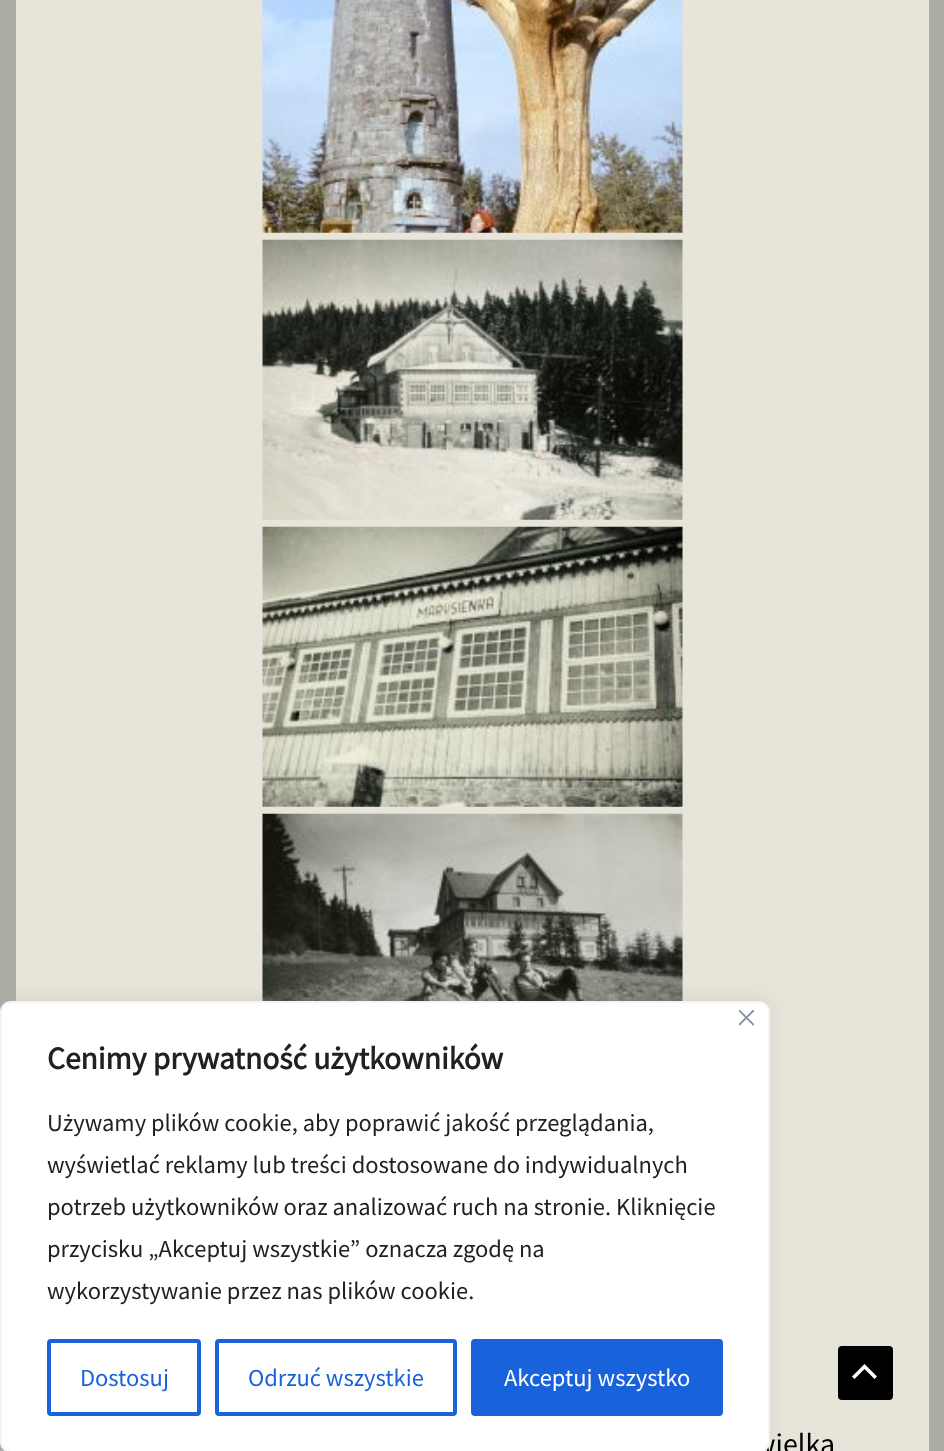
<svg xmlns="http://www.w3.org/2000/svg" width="944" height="1451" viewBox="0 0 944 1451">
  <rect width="100%" height="100%" fill="#abada4"/>
  <path d="M16 0h913v1451H16z" fill="#e7e5d9"/>
  <image x="262" y="813" width="421" height="188" href="img/5.png"/>
  <rect y="999" width="770" height="452" rx="11" fill="#acabab4d" filter="blur(9px)"/>
  <rect x="838" y="1346" width="55" height="54" rx="4" fill="#000"/>
  <path d="M877 1376.5L864.5 1364L852 1376.5L854.5 1379L864.5 1369L874.5 1379Z" fill="#fff"/>
  <image x="262" y="0" width="421" height="233" href="img/2.png"/>
  <image x="262" y="239" width="421" height="281" href="img/3.png"/>
  <image x="262" y="526" width="421" height="281" href="img/4.png"/>
  <text x="754" y="1454" font-family="Source Sans Pro" font-size="30" fill="#000">wielka</text>
  <rect x="1" y="1002" width="768" height="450" rx="10" fill="#fff" stroke="#f4f4f4" stroke-width="2"/>
  <image x="739" y="1010" width="15" height="16" href="img/1.png"/>
  <rect x="473" y="1341" width="248" height="73" rx="2" fill="#1863dc" stroke="#1863dc" stroke-width="4"/>
  <text x="504" y="1386" font-family="Source Sans Pro" font-size="24.5" fill="#fff">Akceptuj wszystko</text>
  <rect x="217" y="1341" width="238" height="73" rx="2" fill="none" stroke="#1863dc" stroke-width="4"/>
  <text x="248" y="1386" font-family="Source Sans Pro" font-size="24.5" fill="#1863dc">Odrzuć wszystkie</text>
  <rect x="49" y="1341" width="150" height="73" rx="2" fill="none" stroke="#1863dc" stroke-width="4"/>
  <text x="80" y="1386" font-family="Source Sans Pro" font-size="24.5" fill="#1863dc">Dostosuj</text>
  <g font-family="Source Sans Pro" font-size="24.5" fill="#212121">
    <text x="47" y="1299">wykorzystywanie przez nas plików cookie.</text>
    <text x="47" y="1257">przycisku „Akceptuj wszystkie” oznacza zgodę na</text>
    <text x="47" y="1215">potrzeb użytkowników oraz analizować ruch na stronie. Kliknięcie</text>
    <text x="47" y="1173">wyświetlać reklamy lub treści dostosowane do indywidualnych</text>
    <text x="47" y="1131">Używamy plików cookie, aby poprawić jakość przeglądania,</text>
  </g>
  <text x="47" y="1069" font-family="Source Sans Pro" font-size="31.5" font-weight="bold" fill="#212121">Cenimy prywatność użytkowników</text>
</svg>
